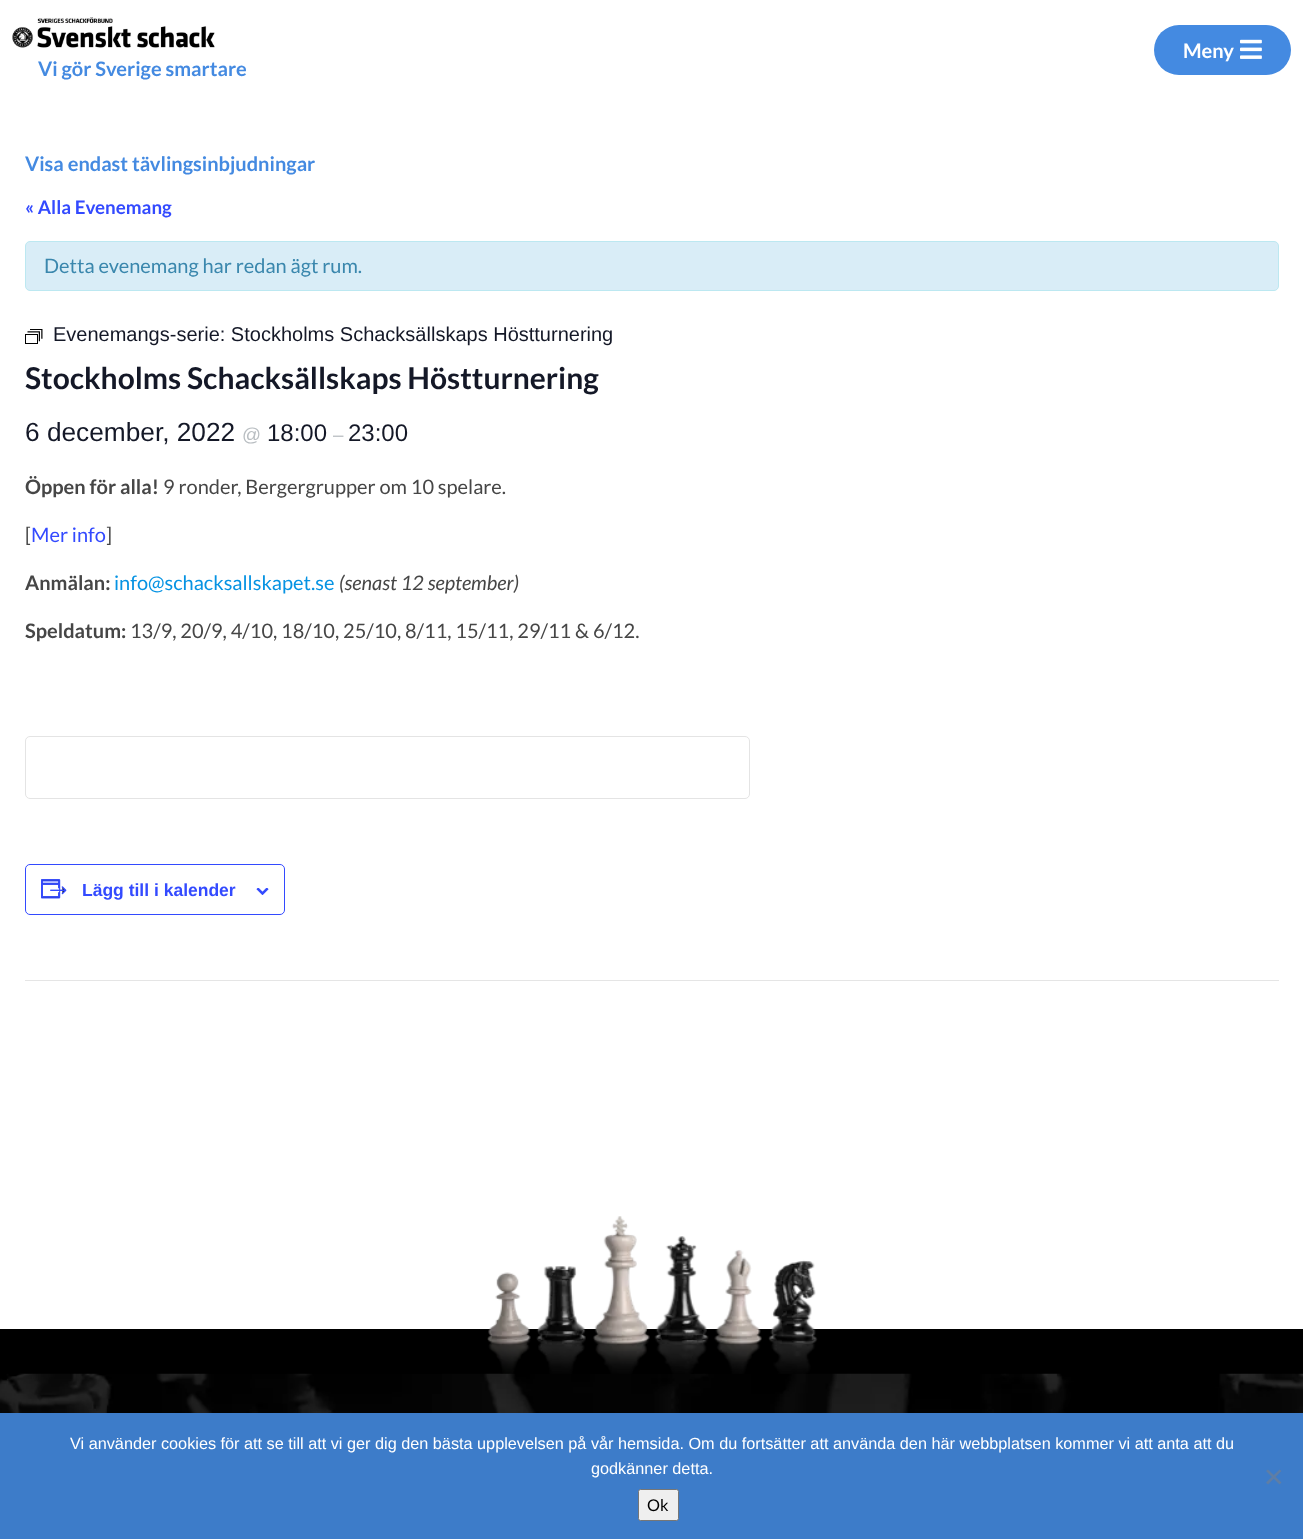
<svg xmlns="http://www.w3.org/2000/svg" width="1303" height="1539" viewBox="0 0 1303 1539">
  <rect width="100%" height="100%" fill="#fff"/>
  <rect x="1154" y="25" width="137" height="50" rx="25" fill="#448ae1"/>
  <image x="1240" y="39" width="22" height="20" href="img/1.png"/>
  <image x="12" y="17" width="203" height="31" href="img/2.png"/>
  <rect x="25.5" y="241.5" width="1253" height="49" rx="4.5" fill="#d9edf7" stroke="#bce8f1"/>
  <image x="25" y="329" width="18" height="15" href="img/3.png"/>
  <rect x="25.5" y="736.5" width="724" height="62" rx="4.5" fill="none" stroke="#e4e4e4"/>
  <rect x="25.5" y="864.5" width="259" height="50" rx="4.5" fill="none" stroke="#334aff"/>
  <image x="41" y="879" width="26" height="20" href="img/4.png"/>
  <image x="256" y="888" width="13" height="7" href="img/5.png"/>
  <path d="M25 980h1254v1H25z" fill="#e5e5e5"/>
  <path d="M0 1329h1303v45H0z" fill="#000"/>
  <image x="0" y="1373" width="1303" height="40" href="img/6.png"/>
  <image x="487" y="1216" width="331" height="158" href="img/7.png"/>
  <path d="M0 1413h1303v126H0z" fill="#3d7cc9"/>
  <path d="M1279.5 1469.5L1281.5 1471L1268 1484.5L1266 1482.5Z" fill="#5f7ea5"/>
  <path d="M1266 1471L1268 1469.5L1281.5 1482.5L1279.5 1484.5Z" fill="#5f7ea5"/>
  <rect x="638.5" y="1489.5" width="40" height="31" rx="2" fill="#efefef" stroke="#767676"/>
  <text x="1183" y="58" font-family="Lato" font-size="20" font-weight="bold" fill="#fff">Meny</text>
  <g font-family="Lato" font-size="20" font-weight="bold" fill="#448ae1">
    <text x="38" y="76">Vi gör Sverige smartare</text>
    <text x="25" y="171">Visa endast tävlingsinbjudningar</text>
  </g>
  <text x="25" y="214" font-family="Lato" font-size="18.75" font-weight="bold" fill="#334aff">« Alla Evenemang</text>
  <text x="44" y="273" font-family="Lato" font-size="20" fill="#3a87ad">Detta evenemang har redan ägt rum.</text>
  <text x="53" y="341" font-family="Liberation Sans" font-size="20" fill="#141827">Evenemangs-serie: Stockholms Schacksällskaps Höstturnering</text>
  <text x="25" y="389" font-family="Lato" font-size="30" font-weight="bold" fill="#141827">Stockholms Schacksällskaps Höstturnering</text>
  <text x="25" y="441" font-family="Liberation Sans" font-size="26.25" fill="#141827">6 december, 2022</text>
  <text x="242" y="441" font-family="Liberation Sans" font-size="18.75" fill="#b9bec2">@</text>
  <text x="267" y="441" font-family="Liberation Sans" font-size="24" fill="#141827">18:00</text>
  <text x="333" y="441" font-family="Liberation Sans" font-size="18.75" fill="#b9bec2">–</text>
  <text x="348" y="441" font-family="Liberation Sans" font-size="24" fill="#141827">23:00</text>
  <text x="25" y="494" font-family="Lato" font-size="20" font-weight="bold" fill="#464646">Öppen för alla!</text>
  <g font-family="Lato" font-size="20" fill="#464646">
    <text x="163" y="494">9 ronder, Bergergrupper om 10 spelare.</text>
    <text x="25" y="542">[</text>
  </g>
  <text x="31" y="542" font-family="Lato" font-size="20" fill="#334aff">Mer info</text>
  <text x="106" y="542" font-family="Lato" font-size="20" fill="#464646">]</text>
  <text x="25" y="590" font-family="Lato" font-size="20" font-weight="bold" fill="#464646">Anmälan:</text>
  <text x="114" y="590" font-family="Lato" font-size="20" fill="#0693e3">info@schacksallskapet.se</text>
  <text x="339" y="590" font-family="Lato" font-size="20" font-style="italic" fill="#464646">(senast 12 september)</text>
  <text x="25" y="638" font-family="Lato" font-size="20" font-weight="bold" fill="#464646">Speldatum:</text>
  <text x="130" y="638" font-family="Lato" font-size="20" fill="#464646">13/9, 20/9, 4/10, 18/10, 25/10, 8/11, 15/11, 29/11 &amp; 6/12.</text>
  <text x="82" y="896" font-family="Liberation Sans" font-size="17.5" font-weight="bold" fill="#334aff">Lägg till i kalender</text>
  <g font-family="Liberation Sans" font-size="16.25" fill="#fff">
    <text x="70" y="1449">Vi använder cookies för att se till att vi ger dig den bästa upplevelsen på vår hemsida. Om du fortsätter att använda den här webbplatsen kommer vi att anta att du</text>
    <text x="591" y="1474">godkänner detta.</text>
  </g>
  <text x="647" y="1511" font-family="Lato" font-size="16.25" fill="#000">Ok</text>
</svg>
